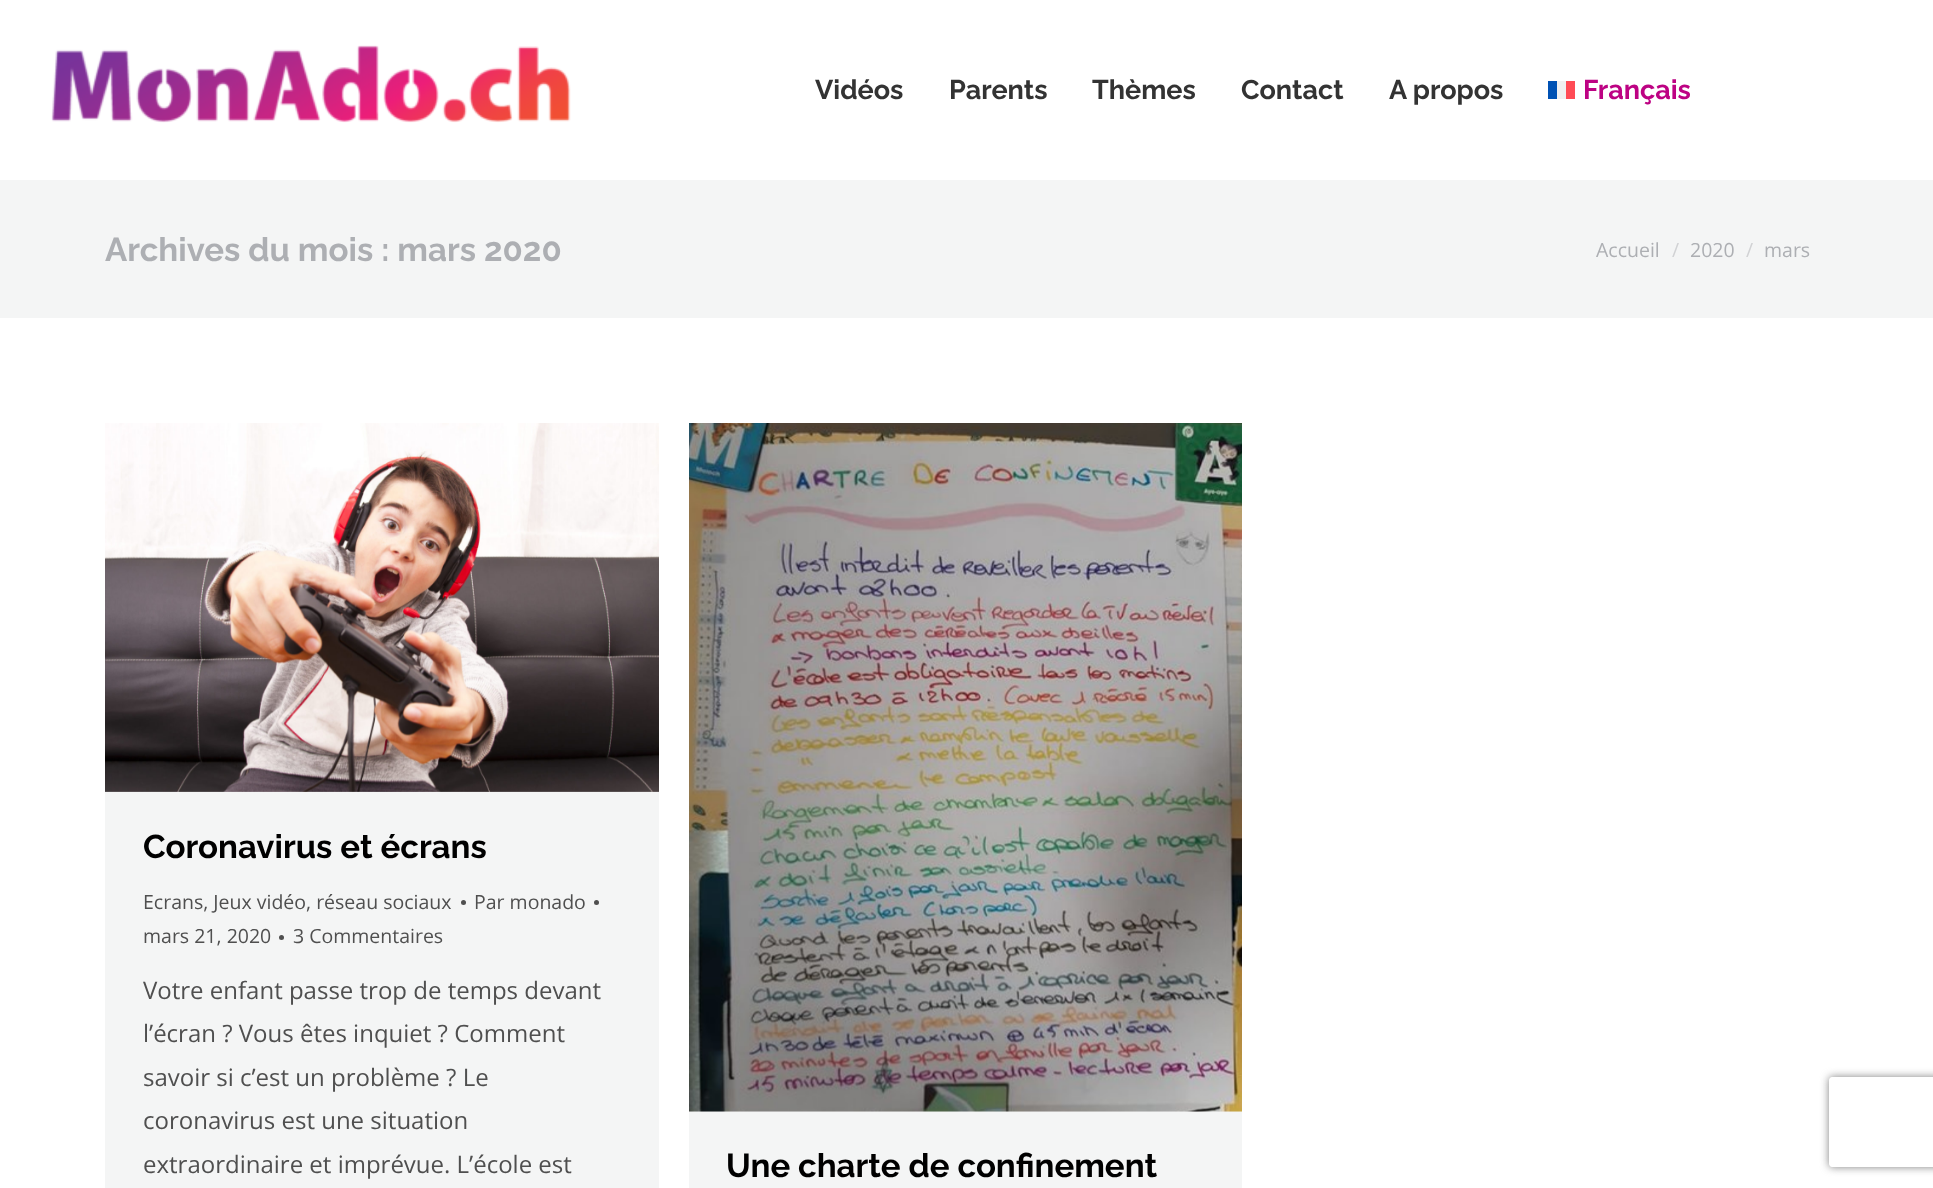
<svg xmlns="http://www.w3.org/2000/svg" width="1933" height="1188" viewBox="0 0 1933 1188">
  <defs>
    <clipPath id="clip1"><path d="M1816 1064H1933V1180H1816ZM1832 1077H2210C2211.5 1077 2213 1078.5 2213 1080V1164C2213 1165.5 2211.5 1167 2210 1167H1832C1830.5 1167 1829 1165.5 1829 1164V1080C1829 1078.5 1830.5 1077 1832 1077Z" clip-rule="evenodd"/></clipPath>
  </defs>
  <rect width="100%" height="100%" fill="#fff"/>
  <image x="51" y="45" width="520" height="78" href="img/1.png"/>
  <path d="M1548 81h9v18H1548z" fill="#0052b4"/>
  <path d="M1557 81h9v18H1557z" fill="#f0f0f0"/>
  <path d="M1566 81h9v18H1566z" fill="#ff4b55"/>
  <path d="M0 180h1933v138H0z" fill="#f4f5f5"/>
  <path d="M105 791h554v397H105z" fill="#f4f5f5"/>
  <image x="105" y="423" width="554" height="369" href="img/2.png"/>
  <circle cx="463.5" cy="902.5" r="2.5" fill="#4f4f4f"/>
  <circle cx="596.5" cy="902.5" r="2.5" fill="#4f4f4f"/>
  <circle cx="281.5" cy="937.5" r="2.5" fill="#4f4f4f"/>
  <path d="M689 1111h553v77H689z" fill="#f4f5f5"/>
  <image x="689" y="423" width="553" height="689" href="img/3.png"/>
  <g clip-path="url(#clip1)">
    <rect x="1829" y="1077" width="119" height="90" rx="3" fill="#808080" filter="blur(4px)"/>
  </g>
  <g font-family="Raleway" font-size="27" font-weight="bold" fill="#333">
    <text x="815" y="99">Vidéos</text>
    <text x="949" y="99">Parents</text>
    <text x="1092" y="99">Thèmes</text>
    <text x="1241" y="99">Contact</text>
    <text x="1389" y="99">A propos</text>
  </g>
  <text x="1583" y="99" font-family="Raleway" font-size="27" font-weight="bold" fill="#bd0283">Français</text>
  <text x="105" y="261" font-family="Raleway" font-size="33" font-weight="bold" fill="#adafb3">Archives du mois : mars 2020</text>
  <text x="1596" y="257" font-family="Open Sans" font-size="19.5" fill="#adafb3">Accueil</text>
  <text x="1672" y="257" font-family="Open Sans" font-size="19.5" fill="#d1d2d4">/</text>
  <text x="1690" y="257" font-family="Open Sans" font-size="19.5" fill="#adafb3">2020</text>
  <text x="1746" y="257" font-family="Open Sans" font-size="19.5" fill="#d1d2d4">/</text>
  <text x="1764" y="257" font-family="Open Sans" font-size="19.5" fill="#adafb3">mars</text>
  <text x="143" y="858" font-family="Raleway" font-size="33" font-weight="bold" fill="#000">Coronavirus et écrans</text>
  <g font-family="Open Sans" font-size="19.5" fill="#4f4f4f">
    <text x="143" y="909">Ecrans, Jeux vidéo, réseau sociaux</text>
    <text x="474" y="909">Par monado</text>
    <text x="143" y="943">mars 21, 2020</text>
    <text x="293" y="943">3 Commentaires</text>
  </g>
  <g font-family="Open Sans" font-size="24" fill="#4f4f4f">
    <text x="143" y="999">Votre enfant passe trop de temps devant</text>
    <text x="143" y="1042">l’écran ? Vous êtes inquiet ? Comment</text>
    <text x="143" y="1086">savoir si c’est un problème ? Le</text>
    <text x="143" y="1129">coronavirus est une situation</text>
    <text x="143" y="1173">extraordinaire et imprévue. L’école est</text>
  </g>
  <text x="726" y="1177" font-family="Raleway" font-size="33" font-weight="bold" fill="#000">Une charte de confinement</text>
</svg>
